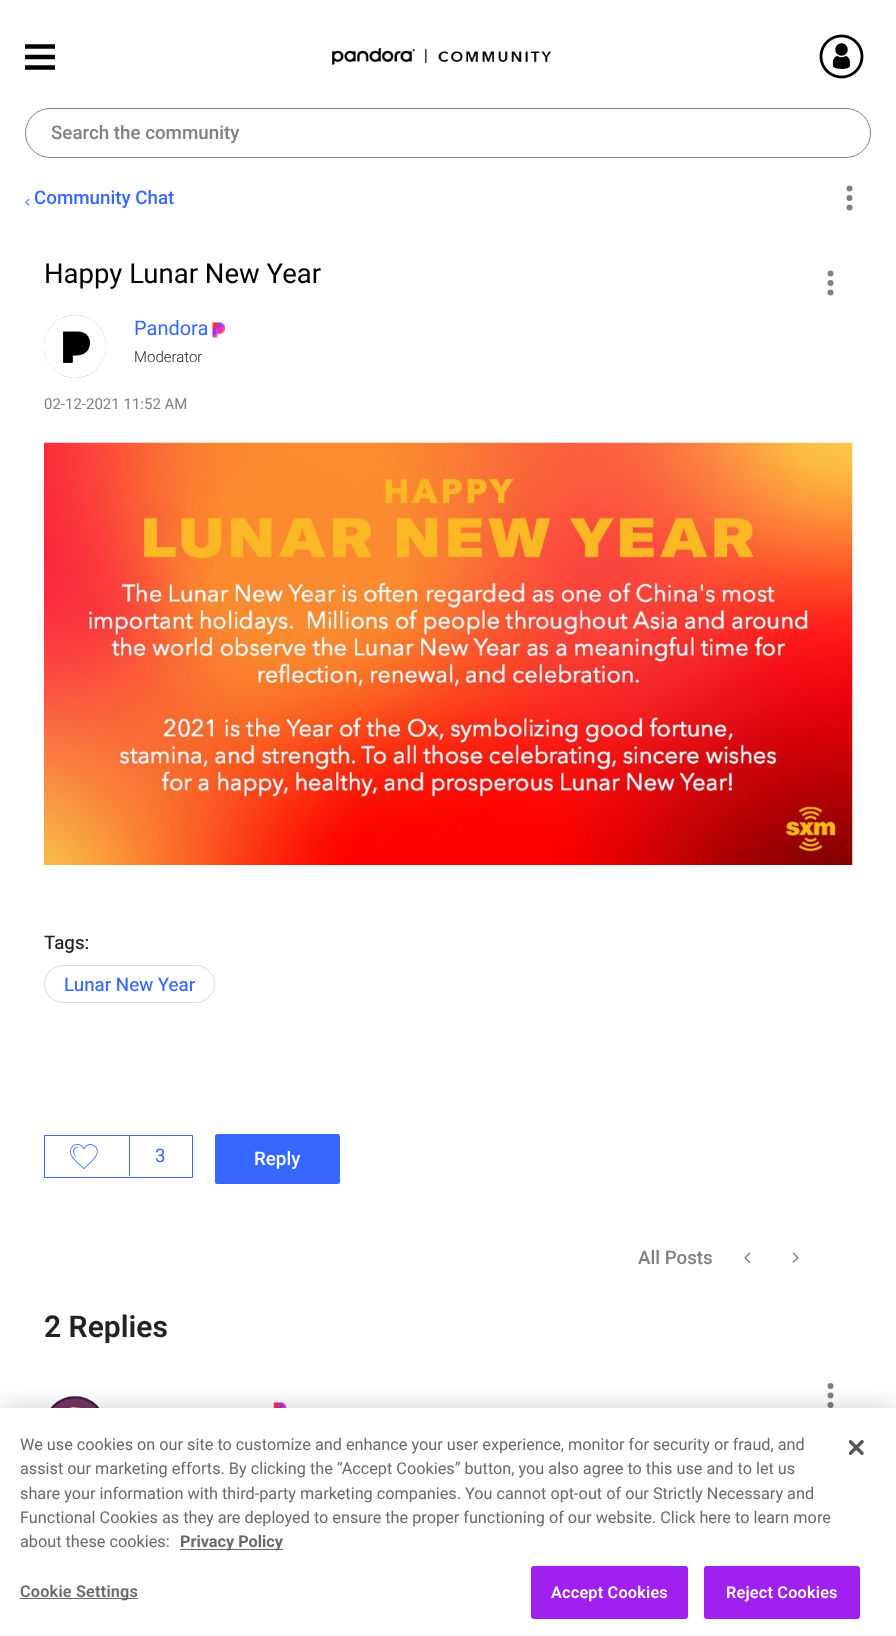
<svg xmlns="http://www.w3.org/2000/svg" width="896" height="1636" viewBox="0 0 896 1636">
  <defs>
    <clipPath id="clip1"><path d="M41 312H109V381H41ZM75 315C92 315 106 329 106 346V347C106 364 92 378 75 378C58 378 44 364 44 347V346C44 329 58 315 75 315Z" clip-rule="evenodd"/></clipPath>
  </defs>
  <rect width="100%" height="100%" fill="#fff"/>
  <image x="25" y="44" width="30" height="26" href="img/1.png"/>
  <image x="332" y="48" width="220" height="17" href="img/2.png"/>
  <image x="819" y="34" width="45" height="45" href="img/3.png"/>
  <rect x="25.5" y="108.5" width="845" height="49" rx="24.5" fill="none" stroke="#808080"/>
  <image x="25" y="198" width="5" height="8" href="img/4.png"/>
  <circle cx="849.5" cy="188.5" r="3" fill="#808080"/>
  <circle cx="849.5" cy="198" r="3" fill="#808080"/>
  <circle cx="849.5" cy="207.5" r="3" fill="#808080"/>
  <g clip-path="url(#clip1)">
    <rect x="44" y="315" width="62" height="63" rx="31" fill="#999" filter="blur(0.5px)"/>
  </g>
  <image x="63" y="331" width="27" height="32" href="img/5.png"/>
  <image x="212" y="322" width="13" height="16" href="img/6.png"/>
  <circle cx="830.5" cy="273.5" r="3" fill="#808080"/>
  <circle cx="830.5" cy="283" r="3" fill="#808080"/>
  <circle cx="830.5" cy="292.5" r="3" fill="#808080"/>
  <image x="43" y="442" width="810" height="423" href="img/7.png"/>
  <rect x="44.5" y="965.5" width="170" height="37" rx="18.5" fill="none" stroke="#d8d8d8"/>
  <path d="M44.5 1135.5h148v42H44.5z" fill="none" stroke="#3668ff"/>
  <image x="70" y="1144" width="28" height="25" href="img/8.png"/>
  <path d="M129 1136h1v40H129z" fill="#3668ff"/>
  <rect x="215" y="1134" width="125" height="50" rx="2.5" fill="#3668ff"/>
  <image x="744" y="1252" width="7" height="11" href="img/9.png"/>
  <image x="792" y="1252" width="7" height="11" href="img/10.png"/>
  <rect x="44" y="1396" width="62" height="63" rx="31" fill="#999" filter="blur(0.5px)"/>
  <image x="51" y="1396" width="48" height="12" href="img/11.png"/>
  <image x="273" y="1402" width="14" height="6" href="img/12.png"/>
  <circle cx="830.5" cy="1386" r="3" fill="#808080"/>
  <circle cx="830.5" cy="1395.5" r="3" fill="#808080"/>
  <circle cx="830.5" cy="1405" r="3" fill="#808080"/>
  <path d="M0 1408h896v228H0z" fill="#00000033" filter="blur(11px)"/>
  <path d="M0 1408h896v228H0z" fill="#fff"/>
  <path d="M180 1549h103v1H180z" fill="#696969"/>
  <path d="M20 1598h118v1H20z" fill="#696969"/>
  <rect x="531.5" y="1566.5" width="156" height="52" rx="2" fill="#a020f0" stroke="#a020f0"/>
  <rect x="704.5" y="1566.5" width="155" height="52" rx="2" fill="#a020f0" stroke="#a020f0"/>
  <image x="849" y="1440" width="15" height="15" href="img/13.png"/>
  <text x="51" y="139" font-family="Roboto" font-size="18.75" font-weight="500" fill="#808080">Search the community</text>
  <text x="34" y="204" font-family="Roboto" font-size="18.75" font-weight="500" fill="#3868ff">Community Chat</text>
  <text x="44" y="283" font-family="Roboto" font-size="27.5" fill="#000">Happy Lunar New Year</text>
  <text x="134" y="335" font-family="Roboto" font-size="20" fill="#3868ff">Pandora</text>
  <text x="134" y="362" font-family="Roboto" font-size="15" font-weight="300" fill="#222">Moderator</text>
  <text x="44" y="409" font-family="Roboto" font-size="15" fill="#808080">02-12-2021 11:52 AM</text>
  <text x="44" y="949" font-family="'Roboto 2'" font-size="18.75" fill="#222">Tags:</text>
  <text x="64" y="991" font-family="'Roboto 2'" font-size="18.75" fill="#3868ff">Lunar New Year</text>
  <text x="155" y="1162" font-family="Roboto" font-size="18.75" fill="#3868ff">3</text>
  <text x="254" y="1165" font-family="Roboto" font-size="18.75" font-weight="500" fill="#fff">Reply</text>
  <text x="638" y="1264" font-family="Roboto" font-size="18.75" font-weight="500" fill="#808080">All Posts</text>
  <text x="44" y="1337" font-family="Roboto" font-size="30" font-weight="600" fill="#222">2 Replies</text>
  <g font-family="Roboto" font-size="16.25" fill="#696969">
    <text x="20" y="1450">We use cookies on our site to customize and enhance your user experience, monitor for security or fraud, and</text>
    <text x="20" y="1474">assist our marketing efforts. By clicking the “Accept Cookies” button, you also agree to this use and to let us</text>
    <text x="20" y="1499">share your information with third-party marketing companies. You cannot opt-out of our Strictly Necessary and</text>
    <text x="20" y="1523">Functional Cookies as they are deployed to ensure the proper functioning of our website. Click here to learn more</text>
    <text x="20" y="1547">about these cookies:</text>
  </g>
  <text x="180" y="1547" font-family="Roboto" font-size="16.25" font-weight="bold" fill="#696969">Privacy Policy</text>
  <text x="20" y="1597" font-family="Roboto" font-size="16.25" font-weight="600" letter-spacing="0.2" fill="#696969">Cookie Settings</text>
  <g font-family="Roboto" font-size="16.25" font-weight="600" letter-spacing="0.2" fill="#fff">
    <text x="551" y="1598">Accept Cookies</text>
    <text x="726" y="1598">Reject Cookies</text>
  </g>
</svg>
